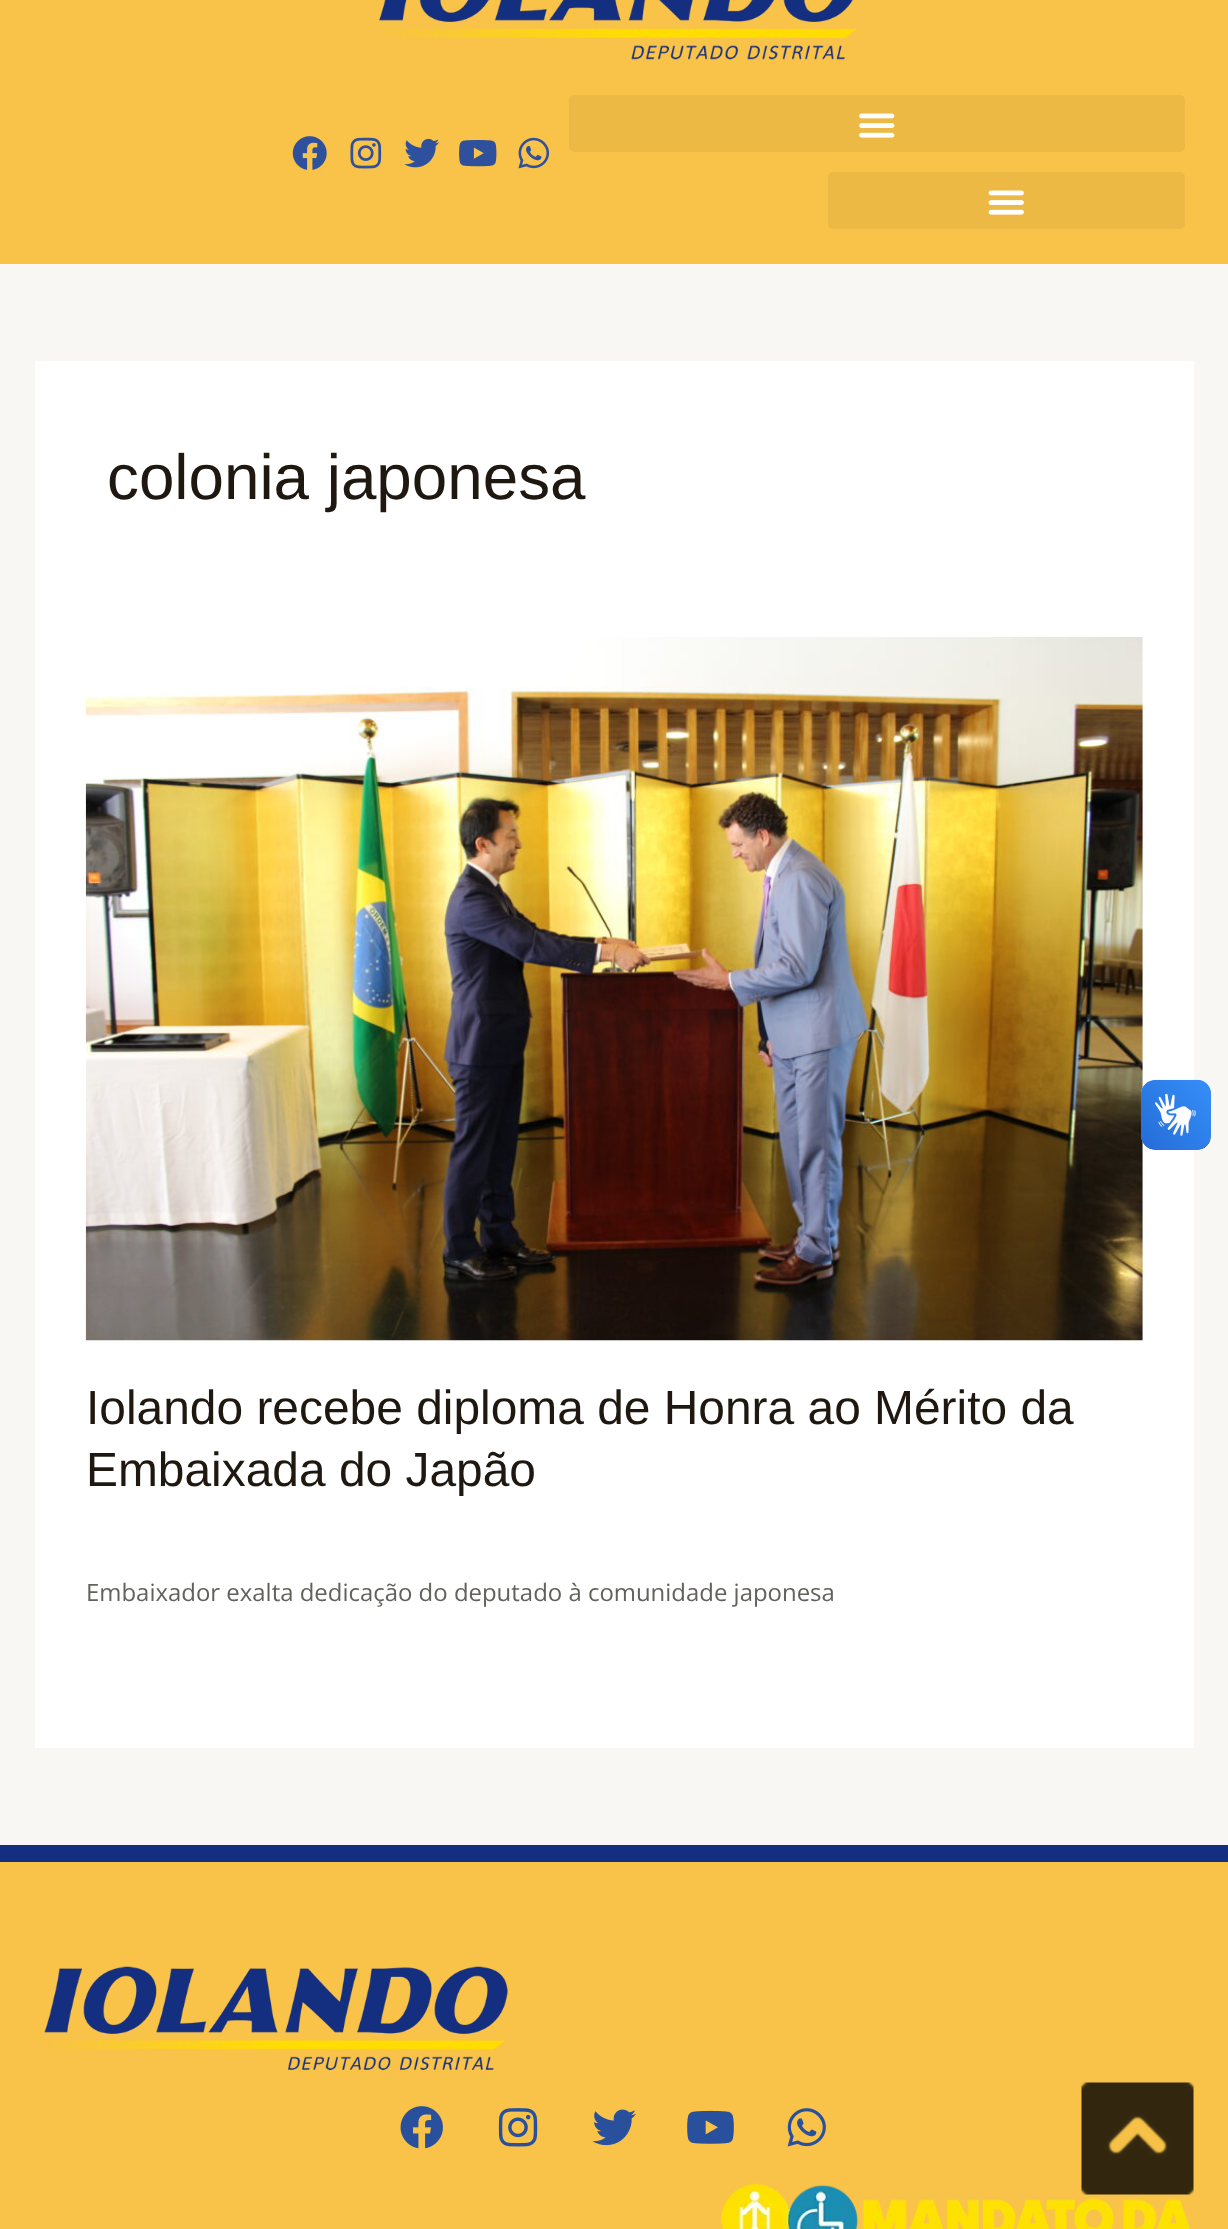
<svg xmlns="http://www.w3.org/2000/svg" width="1228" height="2229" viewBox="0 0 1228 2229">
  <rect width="100%" height="100%" fill="#f8f7f3"/>
  <path d="M0 0h1228v264H0z" fill="#f9c349"/>
  <image x="379" y="0" width="478" height="60" href="img/1.png"/>
  <image x="292" y="136" width="35" height="34" href="img/2.png"/>
  <image x="350" y="137" width="32" height="32" href="img/3.png"/>
  <image x="404" y="138" width="36" height="30" href="img/4.png"/>
  <image x="459" y="140" width="38" height="27" href="img/5.png"/>
  <image x="518" y="137" width="32" height="32" href="img/6.png"/>
  <rect x="569" y="95" width="616" height="57" rx="5" fill="#edb945"/>
  <image x="859" y="113" width="36" height="25" href="img/7.png"/>
  <rect x="828" y="172" width="357" height="57" rx="5" fill="#edb945"/>
  <image x="988" y="190" width="36" height="25" href="img/8.png"/>
  <path d="M35 361h1159v1387H35z" fill="#fff"/>
  <image x="85" y="637" width="1058" height="704" href="img/9.png"/>
  <path d="M0 1862h1228v367H0z" fill="#f9c349"/>
  <path d="M0 1845h1228v17H0z" fill="#152f80"/>
  <image x="44" y="1966" width="464" height="104" href="img/10.png"/>
  <image x="400" y="2106" width="43" height="43" href="img/11.png"/>
  <image x="498" y="2108" width="40" height="39" href="img/12.png"/>
  <image x="592" y="2109" width="44" height="37" href="img/13.png"/>
  <image x="687" y="2110" width="47" height="34" href="img/14.png"/>
  <image x="787" y="2108" width="39" height="39" href="img/15.png"/>
  <image x="721" y="2183" width="470" height="46" href="img/16.png"/>
  <image x="1141" y="1079" width="70" height="71" href="img/17.png"/>
  <image x="1141" y="1080" width="70" height="70" href="img/18.png"/>
  <image x="1081" y="2082" width="113" height="113" href="img/19.png"/>
  <text x="107" y="499" font-family="Liberation Sans" font-size="63.75" fill="#1e1810">colonia japonesa</text>
  <g font-family="Liberation Sans" font-size="47.9" fill="#1e1810">
    <text x="86" y="1424">Iolando recebe diploma de Honra ao Mérito da</text>
    <text x="86" y="1486">Embaixada do Japão</text>
  </g>
  <text x="86" y="1601" font-family="Open Sans" font-size="23.95" fill="#62615c">Embaixador exalta dedicação do deputado à comunidade japonesa</text>
</svg>
